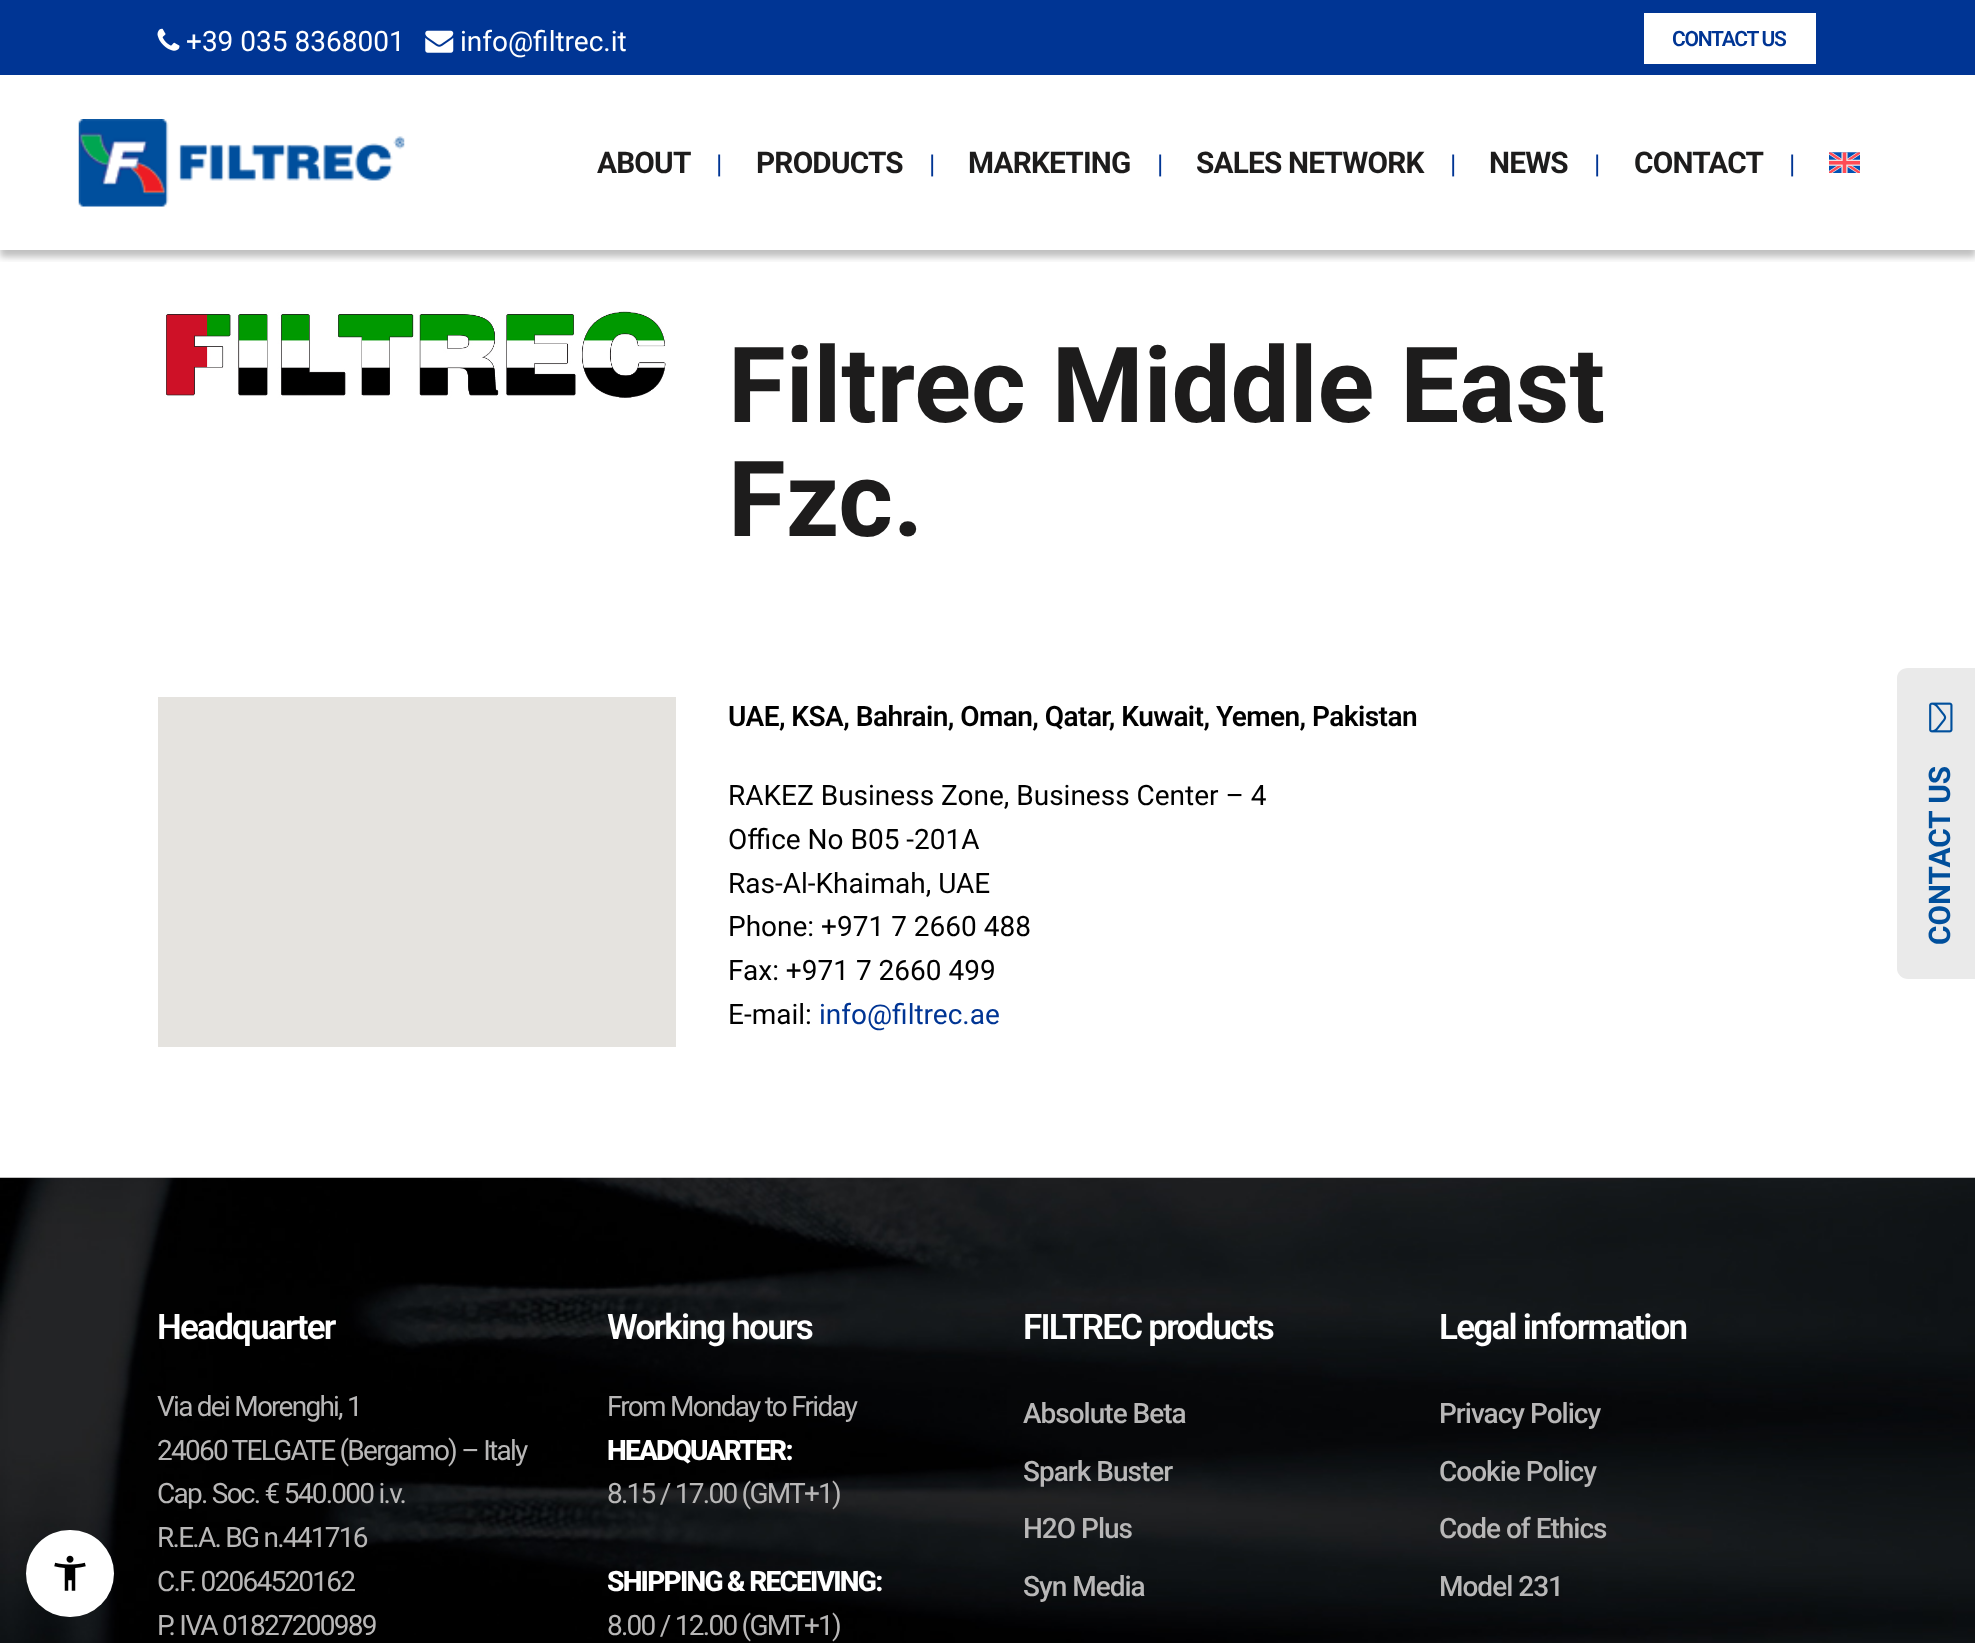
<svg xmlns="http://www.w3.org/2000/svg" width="1975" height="1643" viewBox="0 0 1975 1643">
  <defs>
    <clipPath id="clip1"><path d="M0 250h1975v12H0z"/></clipPath>
  </defs>
  <rect width="100%" height="100%" fill="#fff"/>
  <g clip-path="url(#clip1)">
    <path d="M0 82h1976v175H0z" fill="#00000040" filter="blur(3.5px)"/>
  </g>
  <path d="M0 0h1975v75H0z" fill="#003594"/>
  <image x="157" y="28" width="23" height="23" href="img/1.png"/>
  <image x="425" y="30" width="29" height="23" href="img/2.png"/>
  <path d="M1644 13h172v51H1644z" fill="#fff"/>
  <image x="78" y="119" width="327" height="88" href="img/3.png"/>
  <image x="1829" y="152" width="31" height="21" href="img/4.png"/>
  <image x="166" y="311" width="500" height="87" href="img/5.png"/>
  <path d="M158 697h518v350H158z" fill="#e5e3df"/>
  <image x="0" y="1177" width="1975" height="466" href="img/6.png"/>
  <path d="M1897 969V678C1897 672 1902 668 1908 668H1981V979H1908C1902 979 1897 974 1897 969Z" fill="#eaeaea"/>
  <image x="1929" y="702" width="24" height="31" href="img/7.png"/>
  <rect x="26" y="1530" width="88" height="87" rx="43.5" fill="#fff"/>
  <image x="54" y="1555" width="32" height="36" href="img/8.png"/>
  <g font-family="Roboto" font-size="28" fill="#fff">
    <text x="186" y="51">+39 035 8368001</text>
    <text x="460" y="51">info@filtrec.it</text>
  </g>
  <text x="1672" y="46" font-family="Roboto" font-size="21" font-weight="600" letter-spacing="-1.25" fill="#003594">CONTACT US</text>
  <text x="597" y="173" font-family="Roboto" font-size="29.75" font-weight="bold" letter-spacing="-0.8" fill="#1d1c1c">ABOUT</text>
  <text x="716" y="173" font-family="Roboto" font-size="26" fill="#003594">|</text>
  <text x="756" y="173" font-family="Roboto" font-size="29.75" font-weight="bold" letter-spacing="-0.8" fill="#1d1c1c">PRODUCTS</text>
  <text x="929" y="173" font-family="Roboto" font-size="26" fill="#003594">|</text>
  <text x="968" y="173" font-family="Roboto" font-size="29.75" font-weight="bold" letter-spacing="-0.8" fill="#1d1c1c">MARKETING</text>
  <text x="1157" y="173" font-family="Roboto" font-size="26" fill="#003594">|</text>
  <text x="1196" y="173" font-family="Roboto" font-size="29.75" font-weight="bold" letter-spacing="-0.8" fill="#1d1c1c">SALES NETWORK</text>
  <text x="1450" y="173" font-family="Roboto" font-size="26" fill="#003594">|</text>
  <text x="1489" y="173" font-family="Roboto" font-size="29.75" font-weight="bold" letter-spacing="-0.8" fill="#1d1c1c">NEWS</text>
  <text x="1594" y="173" font-family="Roboto" font-size="26" fill="#003594">|</text>
  <text x="1634" y="173" font-family="Roboto" font-size="29.75" font-weight="bold" letter-spacing="-0.8" fill="#1d1c1c">CONTACT</text>
  <text x="1789" y="173" font-family="Roboto" font-size="26" fill="#003594">|</text>
  <g font-family="Roboto" font-size="105" font-weight="bold" fill="#1d1c1c">
    <text x="728" y="422">Filtrec Middle East</text>
    <text x="728" y="536">Fzc.</text>
  </g>
  <text x="728" y="726" font-family="Roboto" font-size="28" font-weight="600" letter-spacing="-0.55" fill="#000">UAE, KSA, Bahrain, Oman, Qatar, Kuwait, Yemen, Pakistan</text>
  <g font-family="Roboto" font-size="28" fill="#000">
    <text x="728" y="805">RAKEZ Business Zone, Business Center – 4</text>
    <text x="728" y="849">Office No B05 -201A</text>
    <text x="728" y="893">Ras-Al-Khaimah, UAE</text>
    <text x="728" y="936">Phone: +971 7 2660 488</text>
    <text x="728" y="980">Fax: +971 7 2660 499</text>
    <text x="728" y="1024">E-mail:</text>
  </g>
  <text x="819" y="1024" font-family="Roboto" font-size="28" fill="#003594">info@filtrec.ae</text>
  <text x="157" y="1339" font-family="Roboto" font-size="35" font-weight="600" letter-spacing="-1.75" fill="#fff">Headquarter</text>
  <g font-family="Roboto" font-size="28" letter-spacing="-1.75" fill="#b8b7b7">
    <text x="157" y="1416">Via dei Morenghi, 1</text>
    <text x="157" y="1460">24060 TELGATE (Bergamo) – Italy</text>
    <text x="157" y="1503">Cap. Soc. € 540.000 i.v.</text>
    <text x="157" y="1547">R.E.A. BG n.441716</text>
    <text x="157" y="1591">C.F. 02064520162</text>
    <text x="157" y="1635">P. IVA 01827200989</text>
  </g>
  <text x="607" y="1339" font-family="Roboto" font-size="35" font-weight="600" letter-spacing="-1.75" fill="#fff">Working hours</text>
  <text x="607" y="1416" font-family="Roboto" font-size="28" letter-spacing="-1.75" fill="#b8b7b7">From Monday to Friday</text>
  <text x="607" y="1460" font-family="Roboto" font-size="28" font-weight="800" letter-spacing="-1.75" fill="#fff">HEADQUARTER:</text>
  <text x="607" y="1503" font-family="Roboto" font-size="28" letter-spacing="-1.75" fill="#b8b7b7">8.15 / 17.00 (GMT+1)</text>
  <text x="607" y="1591" font-family="Roboto" font-size="28" font-weight="800" letter-spacing="-1.75" fill="#fff">SHIPPING &amp; RECEIVING:</text>
  <text x="607" y="1635" font-family="Roboto" font-size="28" letter-spacing="-1.75" fill="#b8b7b7">8.00 / 12.00 (GMT+1)</text>
  <text x="1023" y="1339" font-family="Roboto" font-size="35" font-weight="600" letter-spacing="-1.75" fill="#fff">FILTREC products</text>
  <g font-family="Roboto" font-size="28" font-weight="500" letter-spacing="-1" fill="#b8b7b7">
    <text x="1023" y="1423">Absolute Beta</text>
    <text x="1023" y="1481">Spark Buster</text>
    <text x="1023" y="1538">H2O Plus</text>
    <text x="1023" y="1596">Syn Media</text>
  </g>
  <text x="1439" y="1339" font-family="Roboto" font-size="35" font-weight="600" letter-spacing="-1.75" fill="#fff">Legal information</text>
  <g font-family="Roboto" font-size="28" font-weight="500" letter-spacing="-1" fill="#b8b7b7">
    <text x="1439" y="1423">Privacy Policy</text>
    <text x="1439" y="1481">Cookie Policy</text>
    <text x="1439" y="1538">Code of Ethics</text>
    <text x="1439" y="1596">Model 231</text>
  </g>
  <text x="1950" y="945" transform="rotate(-90 1950 945)" font-family="Roboto" font-size="29.75" font-weight="bold" fill="#004f9c">CONTACT US</text>
</svg>
